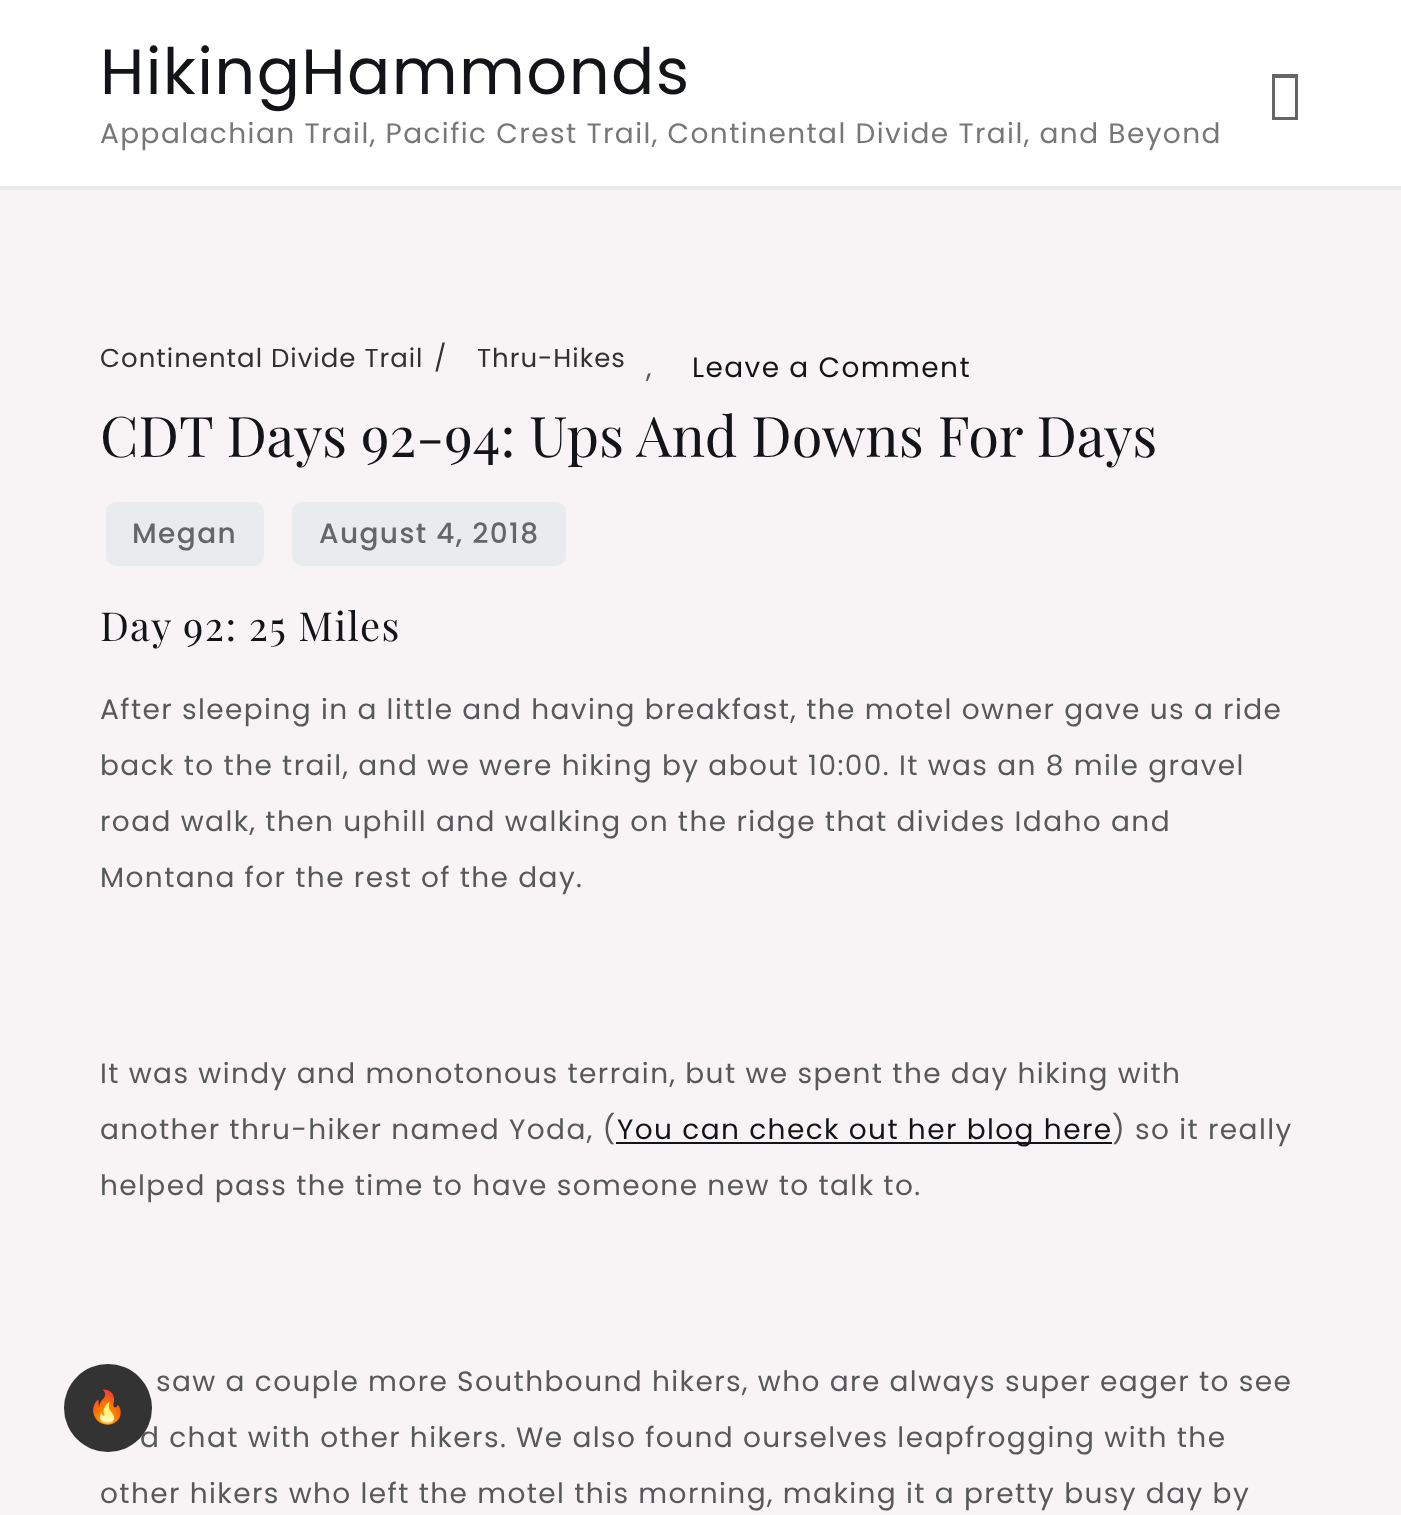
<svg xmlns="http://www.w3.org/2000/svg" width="1401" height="1515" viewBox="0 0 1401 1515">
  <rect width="100%" height="100%" fill="#f8f3f4"/>
  <path d="M0 0h1401v186H0z" fill="#fff"/>
  <path d="M0 186h1401v4H0z" fill="#e9e9e9"/>
  <path d="M1272 120V74H1298V120ZM1275 117H1295V78H1275Z" fill="#666"/>
  <rect x="106" y="502" width="158" height="64" rx="10" fill="#e9ecef"/>
  <rect x="292" y="502" width="274" height="64" rx="10" fill="#e9ecef"/>
  <path d="M616 1142h496v2H616z" fill="#121418"/>
  <text x="100" y="94" font-family="Poppins" font-size="64" letter-spacing="1.4" fill="#121418">HikingHammonds</text>
  <text x="100" y="143" font-family="Poppins" font-size="28" letter-spacing="1.4" fill="#777">Appalachian Trail, Pacific Crest Trail, Continental Divide Trail, and Beyond</text>
  <g font-family="Poppins" font-size="26" letter-spacing="1" fill="#313131">
    <text x="100" y="367">Continental Divide Trail</text>
    <text x="434" y="367">/</text>
    <text x="477" y="367">Thru-Hikes</text>
  </g>
  <text x="646" y="377" font-family="Poppins" font-size="28" letter-spacing="1.4" fill="#565859">,</text>
  <text x="692" y="377" font-family="Poppins" font-size="28" letter-spacing="1.4" fill="#121418">Leave a Comment</text>
  <text x="100" y="457" font-family="Playfair Display" font-size="56" fill="#121418">CDT Days 92-94: Ups And Downs For Days</text>
  <g font-family="Poppins" font-size="28" font-weight="500" letter-spacing="1.4" fill="#666">
    <text x="132" y="543">Megan</text>
    <text x="319" y="543">August 4, 2018</text>
  </g>
  <text x="100" y="641" font-family="Playfair Display" font-size="40" letter-spacing="1.4" fill="#121418">Day 92: 25 Miles</text>
  <g font-family="Poppins" font-size="28" letter-spacing="1.4" fill="#565859">
    <text x="100" y="719">After sleeping in a little and having breakfast, the motel owner gave us a ride</text>
    <text x="100" y="775">back to the trail, and we were hiking by about 10:00. It was an 8 mile gravel</text>
    <text x="100" y="831">road walk, then uphill and walking on the ridge that divides Idaho and</text>
    <text x="100" y="887">Montana for the rest of the day.</text>
    <text x="100" y="1083">It was windy and monotonous terrain, but we spent the day hiking with</text>
    <text x="100" y="1139">another thru-hiker named Yoda, (</text>
  </g>
  <text x="617" y="1139" font-family="Poppins" font-size="28" letter-spacing="1.4" fill="#121418">You can check out her blog here</text>
  <g font-family="Poppins" font-size="28" letter-spacing="1.4" fill="#565859">
    <text x="1112" y="1139">) so it really</text>
    <text x="100" y="1195">helped pass the time to have someone new to talk to.</text>
    <text x="156" y="1391">saw a couple more Southbound hikers, who are always super eager to see</text>
    <text x="140" y="1447">d chat with other hikers. We also found ourselves leapfrogging with the</text>
    <text x="100" y="1503">other hikers who left the motel this morning, making it a pretty busy day by</text>
  </g>
  <circle cx="108" cy="1408" r="44" fill="#333"/>
  <text x="87" y="1418" font-family="Noto Color Emoji" font-size="32" font-weight="bold" letter-spacing="1.4" fill="#fff">🔥</text>
</svg>
